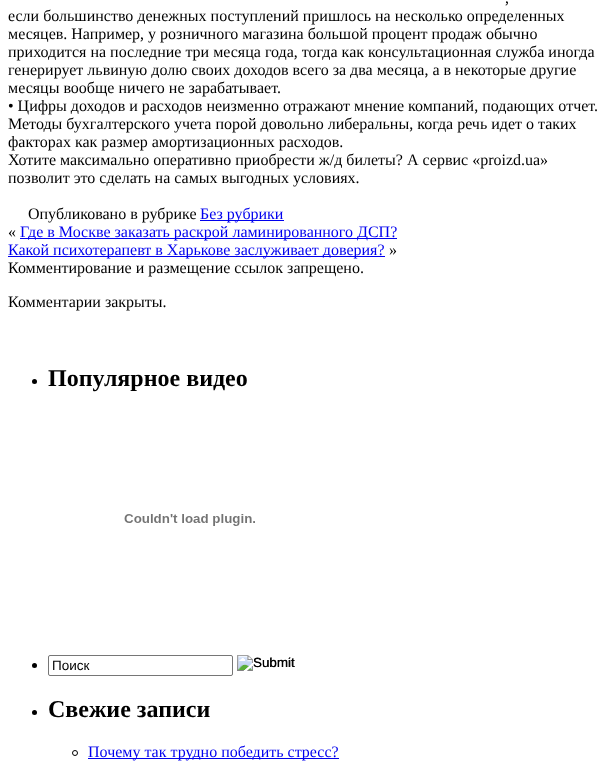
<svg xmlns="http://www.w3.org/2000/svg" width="615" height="762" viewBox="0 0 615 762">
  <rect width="100%" height="100%" fill="#fff"/>
  <path d="M200 220h84v1H200z" fill="#00e"/>
  <path d="M20 238h377v1H20z" fill="#00e"/>
  <path d="M8 256h377v1H8z" fill="#00e"/>
  <circle cx="34.5" cy="381.5" r="2.5" fill="#000"/>
  <image x="124" y="514" width="131" height="12" href="img/1.png"/>
  <circle cx="34.5" cy="665.5" r="2.5" fill="#000"/>
  <rect x="48.5" y="655.5" width="184" height="20" rx="1.5" fill="none" stroke="#767676"/>
  <image x="237" y="655" width="57" height="16" href="img/2.png"/>
  <circle cx="34.5" cy="712.5" r="2.5" fill="#000"/>
  <circle cx="75" cy="753" r="2.5" fill="none" stroke="#000"/>
  <path d="M88 758h251v1H88z" fill="#00e"/>
  <g font-family="Liberation Serif" font-size="16" fill="#000">
    <text x="505" y="3">,</text>
    <text x="8" y="21">если большинство денежных поступлений пришлось на несколько определенных</text>
    <text x="8" y="39">месяцев. Например, у розничного магазина большой процент продаж обычно</text>
    <text x="8" y="57">приходится на последние три месяца года, тогда как консультационная служба иногда</text>
    <text x="8" y="75">генерирует львиную долю своих доходов всего за два месяца, а в некоторые другие</text>
    <text x="8" y="93">месяцы вообще ничего не зарабатывает.</text>
    <text x="8" y="111">• Цифры доходов и расходов неизменно отражают мнение компаний, подающих отчет.</text>
    <text x="8" y="129">Методы бухгалтерского учета порой довольно либеральны, когда речь идет о таких</text>
    <text x="8" y="147">факторах как размер амортизационных расходов.</text>
    <text x="8" y="165">Хотите максимально оперативно приобрести ж/д билеты? А сервис «proizd.ua»</text>
    <text x="8" y="183">позволит это сделать на самых выгодных условиях.</text>
    <text x="28" y="219">Опубликовано в рубрике</text>
  </g>
  <text x="200" y="219" font-family="Liberation Serif" font-size="16" fill="#00e">Без рубрики</text>
  <text x="8" y="237" font-family="Liberation Serif" font-size="16" fill="#000">«</text>
  <g font-family="Liberation Serif" font-size="16" fill="#00e">
    <text x="20" y="237">Где в Москве заказать раскрой ламинированного ДСП?</text>
    <text x="8" y="255">Какой психотерапевт в Харькове заслуживает доверия?</text>
  </g>
  <g font-family="Liberation Serif" font-size="16" fill="#000">
    <text x="389" y="255">»</text>
    <text x="8" y="273">Комментирование и размещение ссылок запрещено.</text>
    <text x="8" y="307">Комментарии закрыты.</text>
  </g>
  <text x="48" y="386" font-family="Liberation Serif" font-size="24" font-weight="bold" fill="#000">Популярное видео</text>
  <g font-family="Liberation Sans" font-size="13.5" fill="#000">
    <text x="52" y="670">Поиск</text>
    <text x="253" y="667">Submit</text>
  </g>
  <text x="48" y="717" font-family="Liberation Serif" font-size="24" font-weight="bold" fill="#000">Свежие записи</text>
  <text x="88" y="757" font-family="Liberation Serif" font-size="16" fill="#00e">Почему так трудно победить стресс?</text>
</svg>
